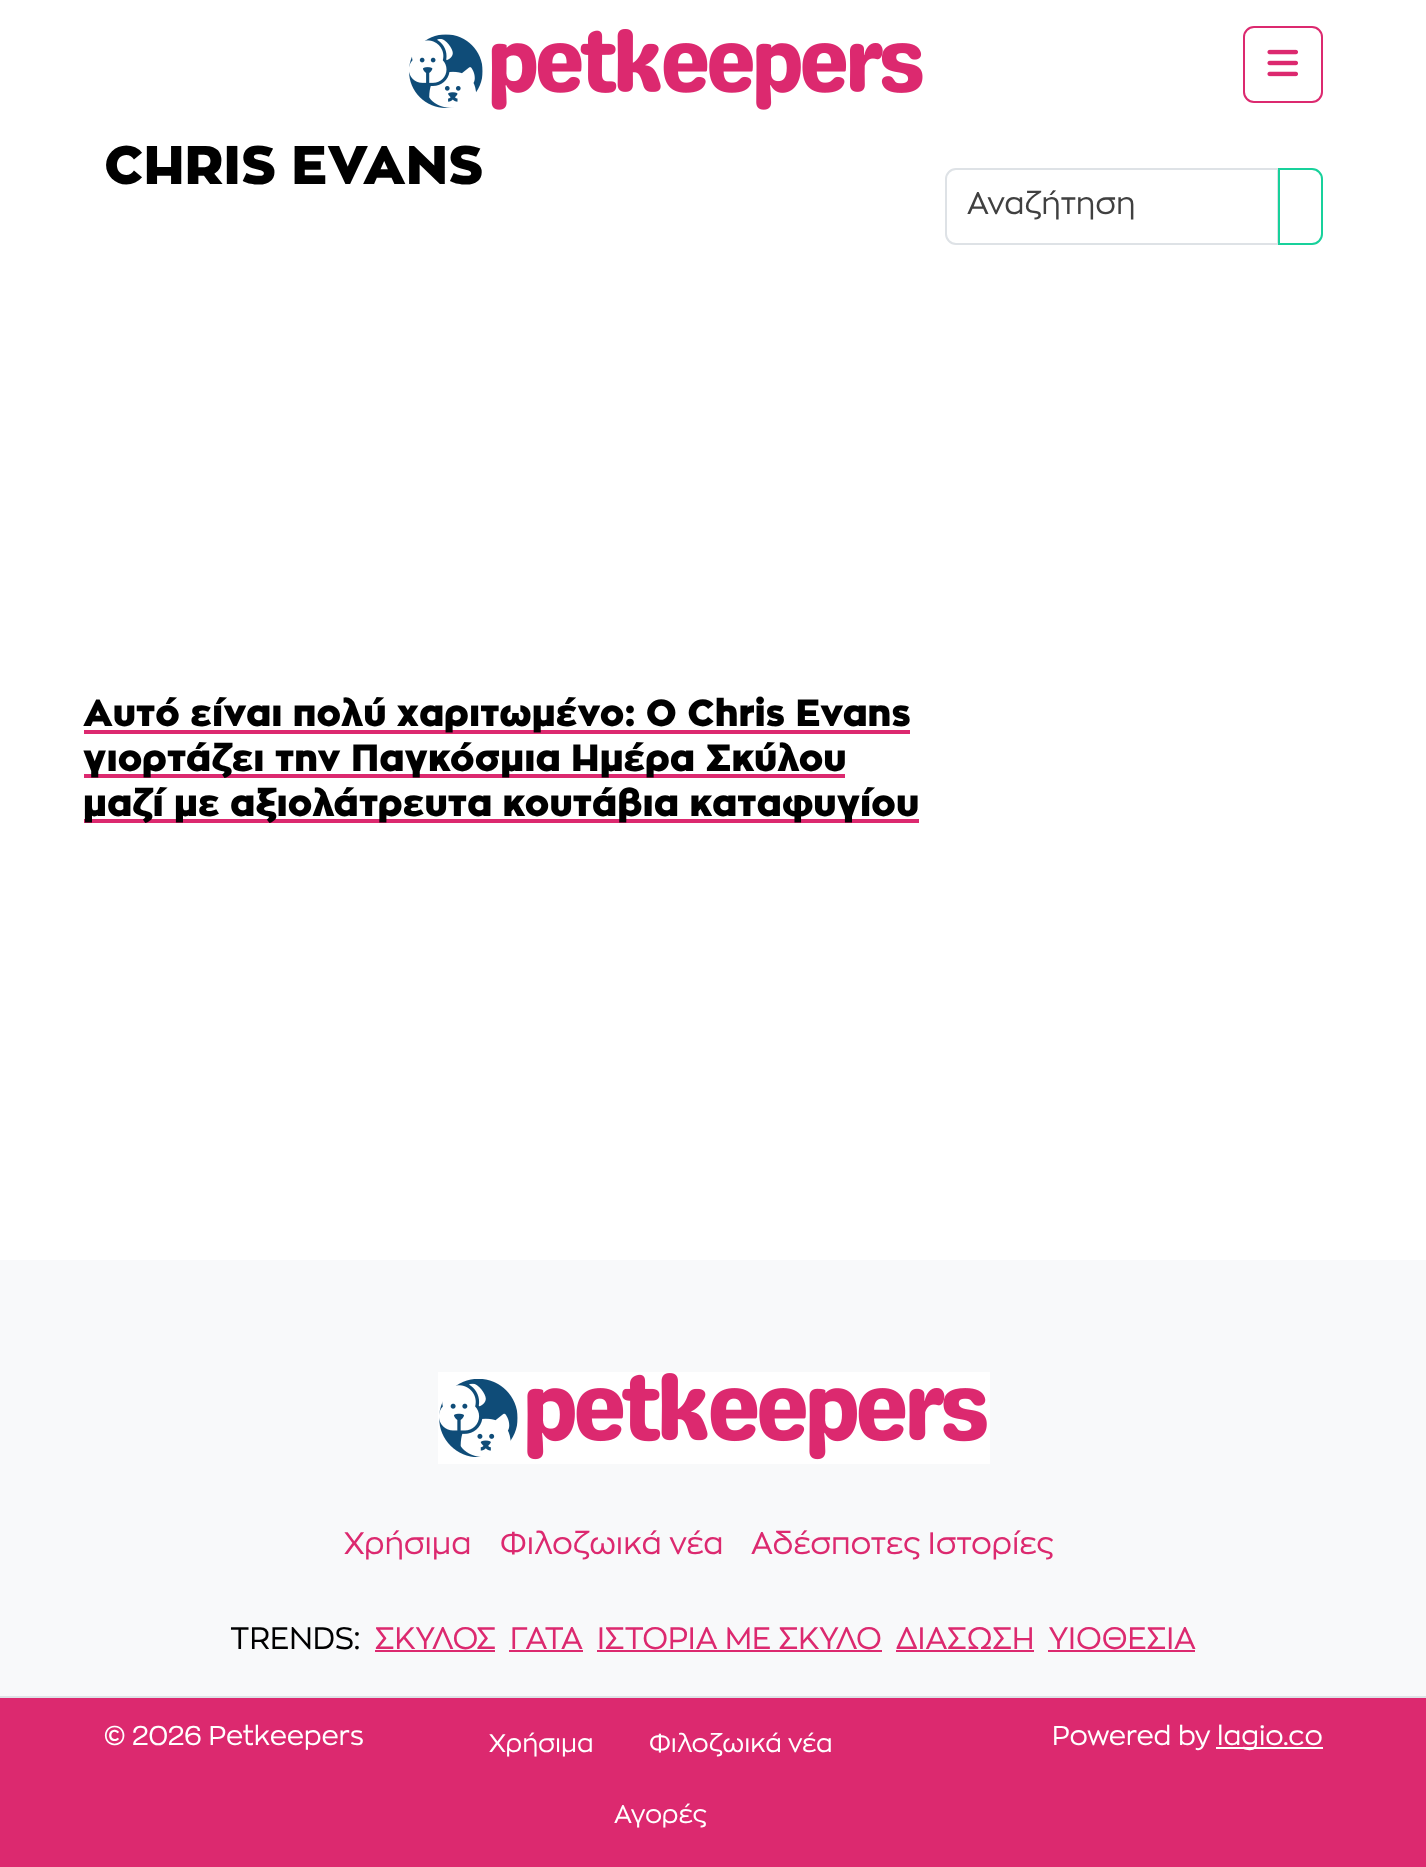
<svg xmlns="http://www.w3.org/2000/svg" width="1426" height="1867" viewBox="0 0 1426 1867">
  <rect width="100%" height="100%" fill="#fff"/>
  <image x="409" y="29" width="514" height="81" href="img/1.png"/>
  <rect x="1244" y="27" width="78" height="75" rx="10" fill="none" stroke="#dc296f" stroke-width="2"/>
  <image x="1267" y="49" width="31" height="28" href="img/2.png"/>
  <path d="M84 730h826v4H84z" fill="#dc296f"/>
  <path d="M84 774h761v4H84z" fill="#dc296f"/>
  <path d="M84 819h835v4H84z" fill="#dc296f"/>
  <path d="M956 169H1278V244H956C950.5 244 946 239.5 946 234V179C946 173.5 950.5 169 956 169Z" fill="none" stroke="#dee2e6" stroke-width="2"/>
  <path d="M1279 169H1312C1317.5 169 1322 173.5 1322 179V234C1322 239.5 1317.5 244 1312 244H1279Z" fill="none" stroke="#18d19b" stroke-width="2"/>
  <path d="M0 1260h1426v436H0z" fill="#f8f9fa"/>
  <image x="438" y="1372" width="552" height="92" href="img/3.png"/>
  <path d="M375 1650h120v2H375z" fill="#dc296f"/>
  <path d="M509 1650h74v2H509z" fill="#dc296f"/>
  <path d="M597 1650h285v2H597z" fill="#dc296f"/>
  <path d="M896 1650h138v2H896z" fill="#dc296f"/>
  <path d="M1048 1650h147v2H1048z" fill="#dc296f"/>
  <path d="M0 1698h1426v169H0z" fill="#dc296f"/>
  <path d="M0 1696h1426v2H0z" fill="#dee2e6"/>
  <path d="M1216 1747h107v2H1216z" fill="#fff"/>
  <text x="104" y="184" font-family="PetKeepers" font-size="54" font-weight="900" fill="#000">CHRIS EVANS</text>
  <g font-family="PetKeepers" font-size="37.5" font-weight="900" fill="#000">
    <text x="83" y="726">Αυτό είναι πολύ χαριτωμένο: Ο Chris Evans</text>
    <text x="83" y="771">γιορτάζει την Παγκόσμια Ημέρα Σκύλου</text>
    <text x="83" y="816">μαζί με αξιολάτρευτα κουτάβια καταφυγίου</text>
  </g>
  <text x="967" y="214" font-family="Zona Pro" font-size="30.75" fill="#404040">Αναζήτηση</text>
  <g font-family="Zona Pro" font-size="30.75" fill="#dc296f">
    <text x="344" y="1554">Χρήσιμα</text>
    <text x="500" y="1554">Φιλοζωικά νέα</text>
    <text x="751" y="1554">Αδέσποτες Ιστορίες</text>
  </g>
  <text x="230" y="1649" font-family="Zona Pro" font-size="30.75" fill="#000">TRENDS:</text>
  <g font-family="Zona Pro" font-size="30.75" fill="#dc296f">
    <text x="375" y="1649">ΣΚΥΛΟΣ</text>
    <text x="510" y="1649">ΓΑΤΑ</text>
    <text x="597" y="1649">ΙΣΤΟΡΙΑ ΜΕ ΣΚΥΛΟ</text>
    <text x="896" y="1649">ΔΙΑΣΩΣΗ</text>
    <text x="1049" y="1649">ΥΙΟΘΕΣΙΑ</text>
  </g>
  <text x="104" y="1745" font-family="Zona Pro" font-size="27" fill="#fff">© 2026 Petkeepers</text>
  <g font-family="Zona Pro" font-size="25.25" fill="#fff">
    <text x="489" y="1752">Χρήσιμα</text>
    <text x="649" y="1752">Φιλοζωικά νέα</text>
    <text x="614" y="1823">Αγορές</text>
  </g>
  <g font-family="Zona Pro" font-size="27" fill="#fff">
    <text x="1052" y="1745">Powered by</text>
    <text x="1217" y="1745">lagio.co</text>
  </g>
</svg>
